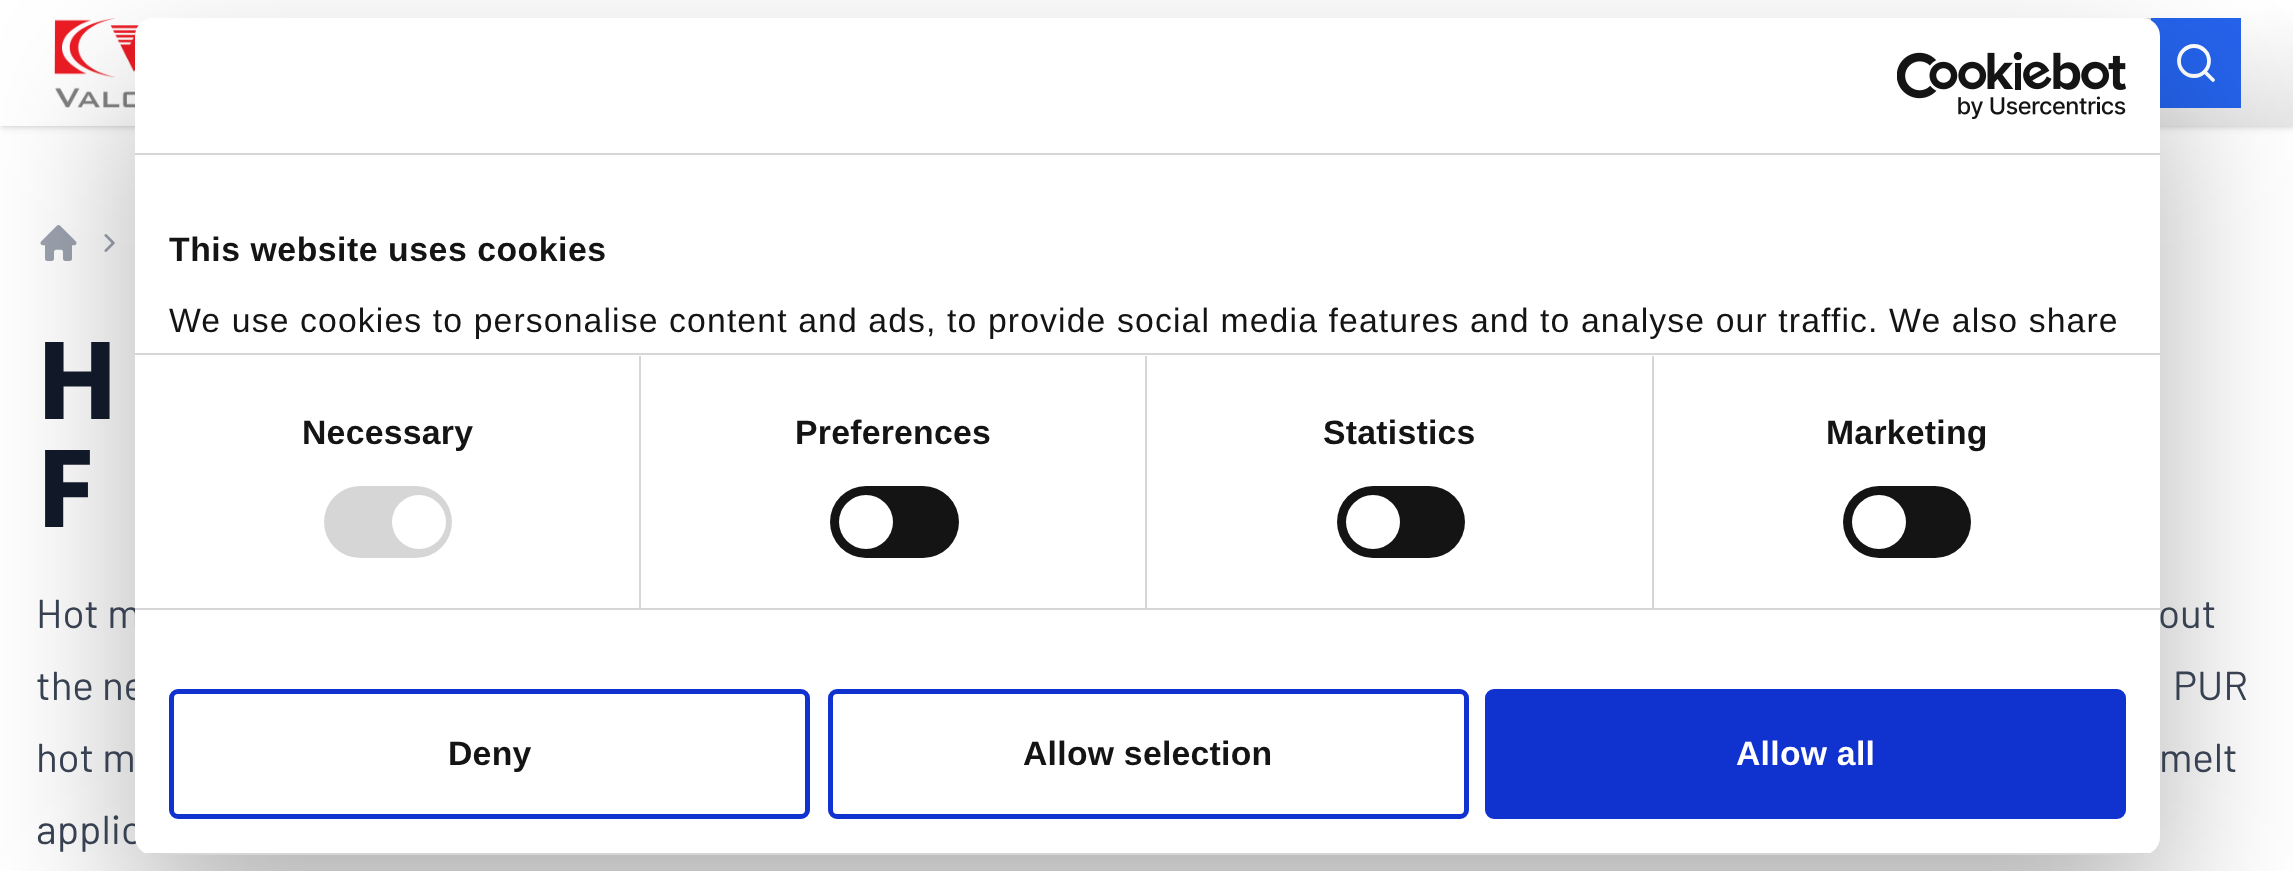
<svg xmlns="http://www.w3.org/2000/svg" width="2293" height="871" viewBox="0 0 2293 871">
  <defs>
    <linearGradient id="g1" gradientUnits="userSpaceOnUse" x1="1141" y1="-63" x2="1154" y2="189"><stop offset="0" stop-color="#fff"/><stop offset="0.5" stop-color="#fff"/><stop offset="1" stop-color="#e5e5e5"/></linearGradient>
    <clipPath id="clip1"><rect x="135" y="18" width="2025" height="837" rx="18"/></clipPath>
  </defs>
  <rect width="100%" height="100%" fill="#fff"/>
  <path d="M2 5h2291v121H2z" fill="#0000001a" filter="blur(2px)"/>
  <path d="M0 2h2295v126H0z" fill="#0000001a" filter="blur(3.5px)"/>
  <path d="M0 0h2293v126H0z" fill="url(#g1)"/>
  <image x="54" y="18" width="85" height="90" href="img/1.png"/>
  <path d="M1900 19h250v88H1900z" fill="none" stroke="#d1d5db" stroke-width="2"/>
  <path d="M2151 18h90v90H2151z" fill="#2563eb"/>
  <circle cx="2194" cy="61" r="15" fill="none" stroke="#fff" stroke-width="3.8"/>
  <path d="M2213 80L2205 72" fill="none" stroke="#fff" stroke-width="3.8" stroke-linecap="round" stroke-linejoin="round"/>
  <image x="40" y="225" width="37" height="36" href="img/3.png"/>
  <image x="104" y="234" width="11" height="18" href="img/4.png"/>
  <rect x="135" y="90" width="2025" height="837" rx="18" fill="#0000004d" filter="blur(76.5px)"/>
  <g font-family="Noto Sans" font-size="108" font-weight="800" fill="#111827">
    <text x="36" y="419">H</text>
    <text x="36" y="527">F</text>
  </g>
  <g font-family="Barlow" font-size="40.5" fill="#374151">
    <text x="36" y="628">Hot m</text>
    <text x="2158" y="628">out</text>
    <text x="36" y="700">the ne</text>
    <text x="2173" y="700">PUR</text>
    <text x="36" y="772">hot m</text>
    <text x="2159" y="772">melt</text>
    <text x="36" y="844">applic</text>
  </g>
  <rect x="135" y="18" width="2025" height="837" rx="18" fill="#fff"/>
  <rect x="1487.5" y="691.5" width="636" height="125" rx="6.5" fill="#1032cf" stroke="#1032cf" stroke-width="5"/>
  <text x="1736" y="765" font-family="Liberation Sans" font-size="33.75" font-weight="bold" letter-spacing="0.25" fill="#fff">Allow all</text>
  <rect x="830.5" y="691.5" width="636" height="125" rx="6.5" fill="none" stroke="#1032cf" stroke-width="5"/>
  <text x="1023" y="765" font-family="Liberation Sans" font-size="33.75" font-weight="bold" letter-spacing="0.25" fill="#141414">Allow selection</text>
  <rect x="171.5" y="691.5" width="636" height="125" rx="6.5" fill="none" stroke="#1032cf" stroke-width="5"/>
  <text x="448" y="765" font-family="Liberation Sans" font-size="33.75" font-weight="bold" letter-spacing="0.25" fill="#141414">Deny</text>
  <g clip-path="url(#clip1)">
    <path d="M145 853h2005v2H145z" fill="#d6d6d6"/>
  </g>
  <rect x="1843" y="486" width="128" height="72" rx="36" fill="#141414"/>
  <circle cx="1879" cy="522" r="27" fill="#fff"/>
  <rect x="1337" y="486" width="128" height="72" rx="36" fill="#141414"/>
  <circle cx="1373" cy="522" r="27" fill="#fff"/>
  <rect x="830" y="486" width="129" height="72" rx="36" fill="#141414"/>
  <circle cx="866" cy="522" r="27" fill="#fff"/>
  <rect x="324" y="486" width="128" height="72" rx="36" fill="#d6d6d6"/>
  <circle cx="419" cy="522" r="27" fill="#fff"/>
  <text x="169" y="332" font-family="Liberation Sans" font-size="33.75" letter-spacing="1.12" fill="#141414">We use cookies to personalise content and ads, to provide social media features and to analyse our traffic. We also share</text>
  <text x="169" y="261" font-family="Liberation Sans" font-size="33.75" font-weight="bold" letter-spacing="0.55" fill="#141414">This website uses cookies</text>
  <path d="M135 353h2025v2H135z" fill="#d6d6d6"/>
  <g font-family="Liberation Sans" font-size="33.75" font-weight="bold" letter-spacing="0.25" fill="#141414">
    <text x="1826" y="444">Marketing</text>
    <text x="1323" y="444">Statistics</text>
  </g>
  <path d="M1652 356h2v252H1652z" fill="#d6d6d6"/>
  <text x="795" y="444" font-family="Liberation Sans" font-size="33.75" font-weight="bold" letter-spacing="0.25" fill="#141414">Preferences</text>
  <path d="M1145 356h2v252H1145z" fill="#d6d6d6"/>
  <text x="302" y="444" font-family="Liberation Sans" font-size="33.75" font-weight="bold" letter-spacing="0.25" fill="#141414">Necessary</text>
  <path d="M639 356h2v252H639z" fill="#d6d6d6"/>
  <path d="M135 608h2025v2H135z" fill="#d6d6d6"/>
  <image x="1897" y="52" width="229" height="67" href="img/2.png"/>
  <path d="M135 153h2025v2H135z" fill="#d6d6d6"/>
</svg>
